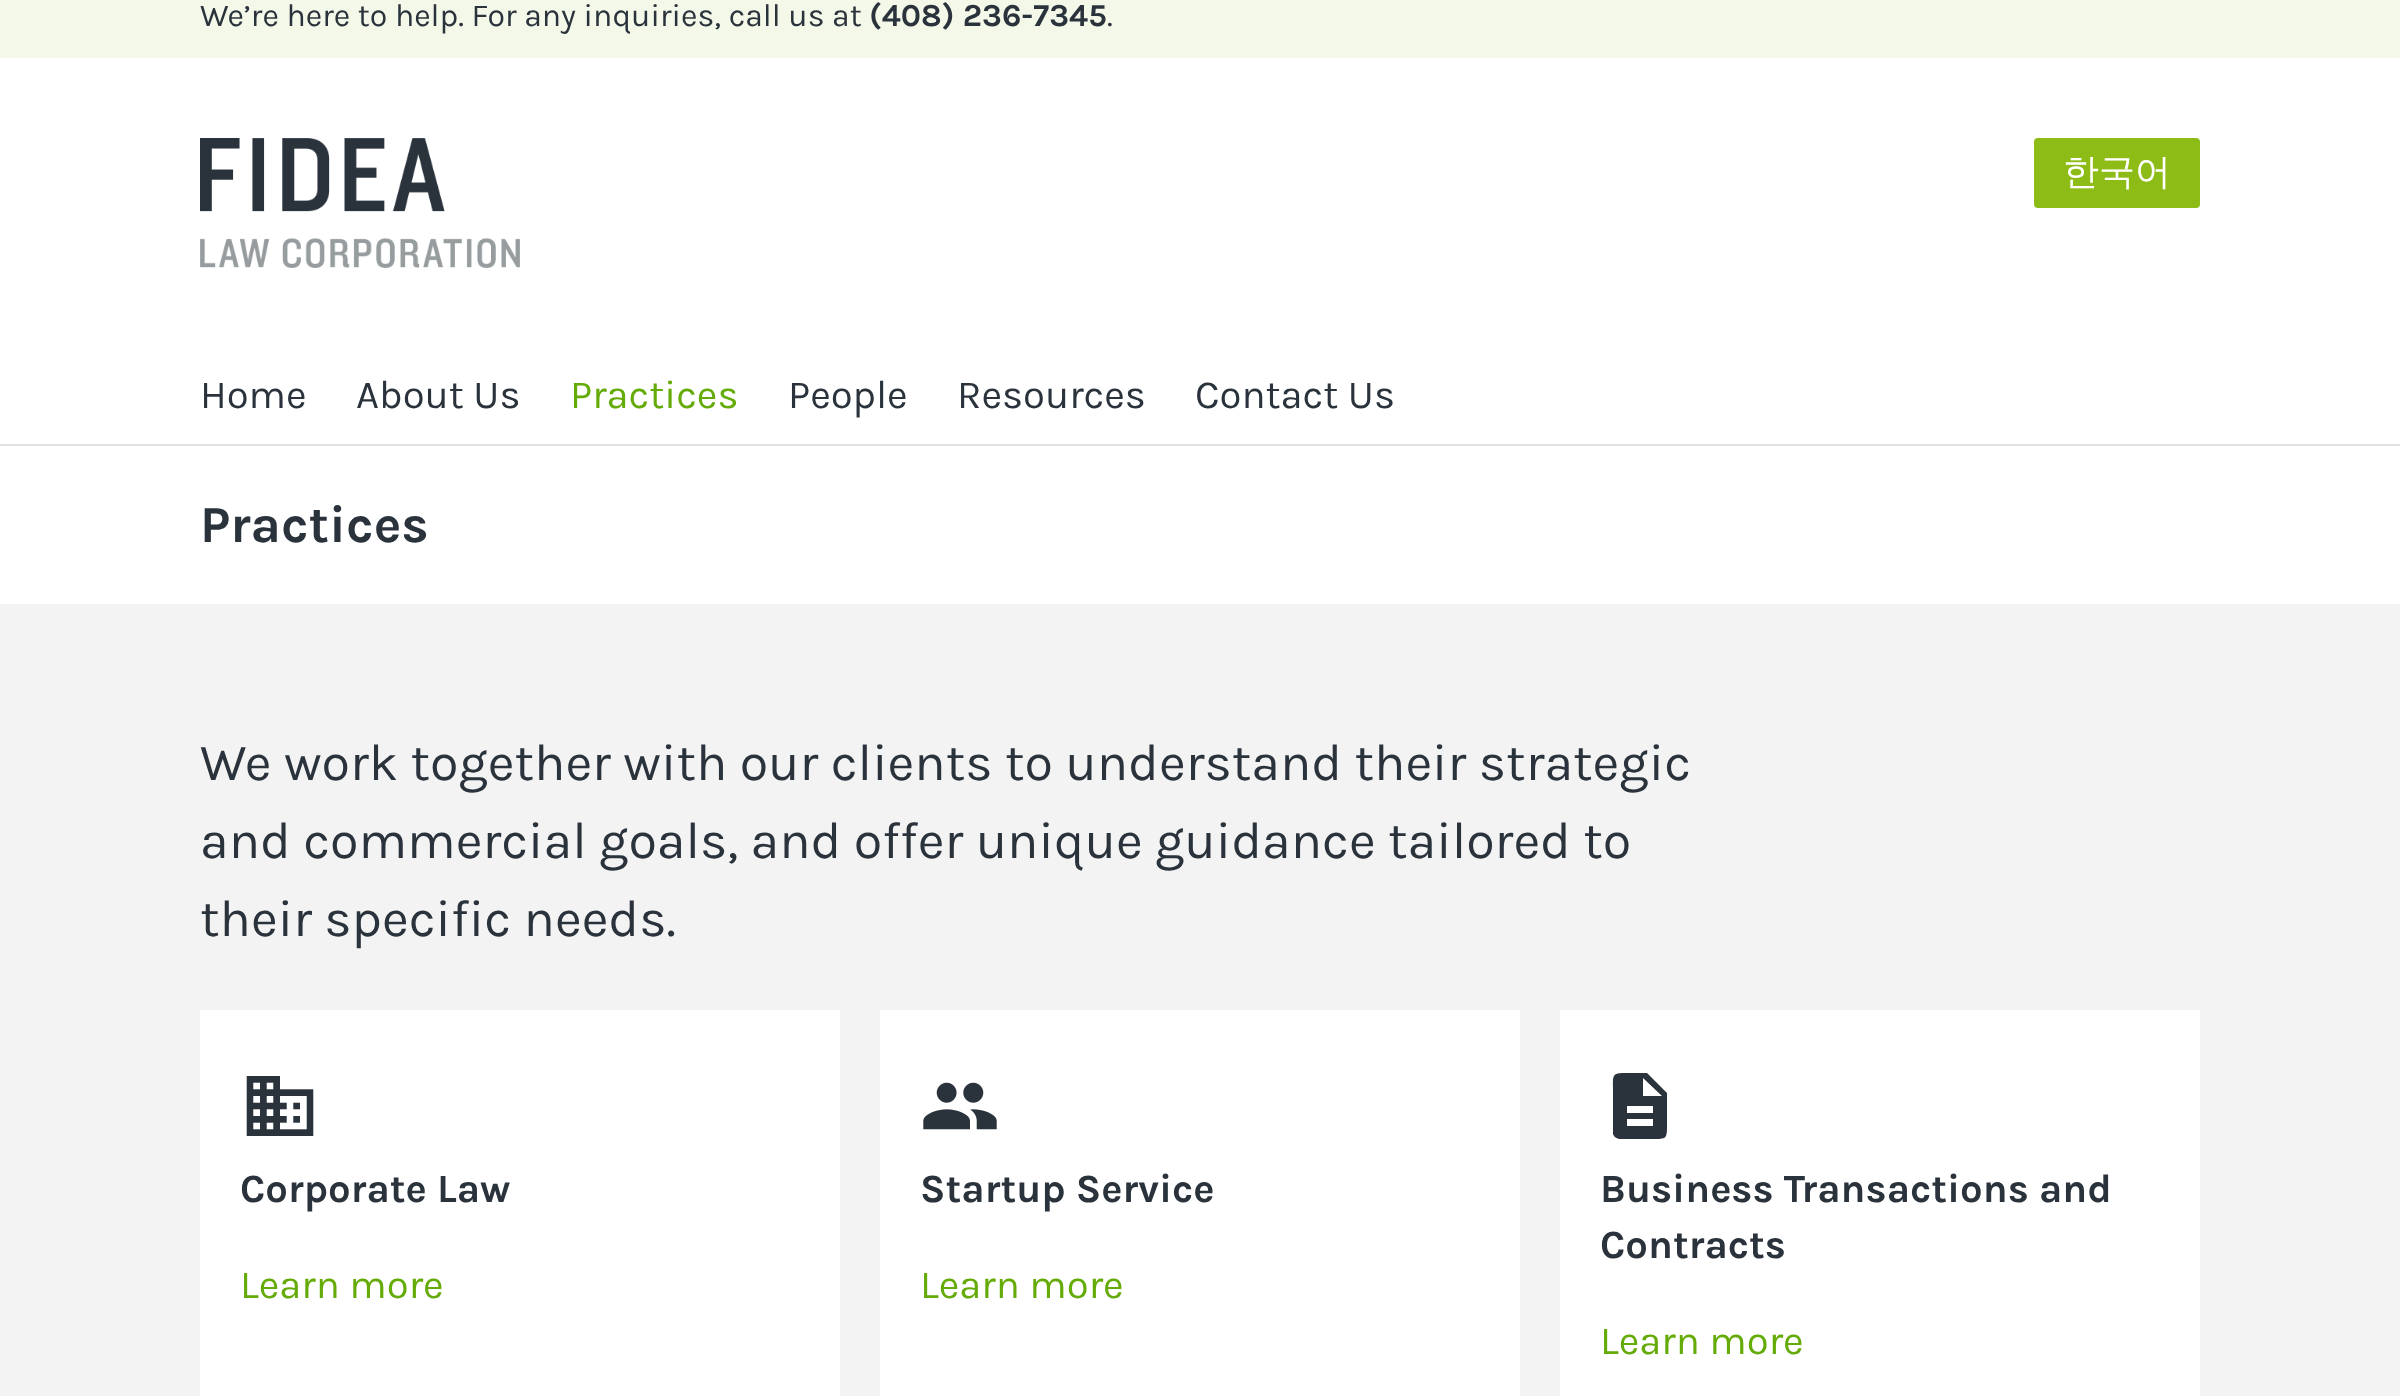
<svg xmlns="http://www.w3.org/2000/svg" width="2400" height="1396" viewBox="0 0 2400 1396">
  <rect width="100%" height="100%" fill="#fff"/>
  <path d="M0 0h2400v58H0z" fill="#f3f8e8"/>
  <image x="200" y="138" width="320" height="130" href="img/1.png"/>
  <rect x="2034" y="138" width="166" height="70" rx="4" fill="#8ebc16"/>
  <path d="M0 444h2400v2H0z" fill="#e1e2e4"/>
  <path d="M0 604h2400v792H0z" fill="#f3f3f3"/>
  <path d="M200 1010h640v386H200z" fill="#fff"/>
  <image x="246" y="1076" width="68" height="60" href="img/2.png"/>
  <path d="M880 1010h640v386H880z" fill="#fff"/>
  <image x="923" y="1082" width="74" height="48" href="img/3.png"/>
  <path d="M1560 1010h640v386H1560z" fill="#fff"/>
  <path d="M1643 1096H1662L1643 1078ZM1653 1113V1106H1627V1113ZM1653 1126V1119H1627V1126ZM1647 1073L1667 1093V1126C1667 1139 1666 1139 1653 1139H1627C1622 1139 1615 1140 1613 1134V1088C1613 1076 1612 1073 1624 1073Z" fill="#2a333c"/>
  <text x="200" y="26" font-family="Karla" font-size="32" fill="#2a333c">We’re here to help. For any inquiries, call us at</text>
  <text x="869" y="26" font-family="Karla" font-size="32" font-weight="bold" fill="#2a333c">(408) 236-7345</text>
  <text x="1107" y="26" font-family="Karla" font-size="32" fill="#2a333c">.</text>
  <text x="2063" y="184" font-family="WenQuanYi Zen Hei" font-size="36" font-weight="500" fill="#fff">한국어</text>
  <g font-family="Karla" font-size="40" fill="#2a333c">
    <text x="200" y="408">Home</text>
    <text x="356" y="408">About Us</text>
  </g>
  <text x="570" y="408" font-family="Karla" font-size="40" fill="#65ab08">Practices</text>
  <g font-family="Karla" font-size="40" fill="#2a333c">
    <text x="788" y="408">People</text>
    <text x="957" y="408">Resources</text>
    <text x="1195" y="408">Contact Us</text>
  </g>
  <text x="200" y="542" font-family="Karla" font-size="52" font-weight="bold" fill="#2a333c">Practices</text>
  <g font-family="Karla" font-size="52" fill="#2a333c">
    <text x="200" y="780">We work together with our clients to understand their strategic</text>
    <text x="200" y="858">and commercial goals, and offer unique guidance tailored to</text>
    <text x="200" y="936">their specific needs.</text>
  </g>
  <text x="240" y="1202" font-family="Karla" font-size="40" font-weight="bold" fill="#2a333c">Corporate Law</text>
  <text x="240" y="1298" font-family="Karla" font-size="40" fill="#65ab08">Learn more</text>
  <text x="920" y="1202" font-family="Karla" font-size="40" font-weight="bold" fill="#2a333c">Startup Service</text>
  <text x="920" y="1298" font-family="Karla" font-size="40" fill="#65ab08">Learn more</text>
  <g font-family="Karla" font-size="40" font-weight="bold" fill="#2a333c">
    <text x="1600" y="1202">Business Transactions and</text>
    <text x="1600" y="1258">Contracts</text>
  </g>
  <text x="1600" y="1354" font-family="Karla" font-size="40" fill="#65ab08">Learn more</text>
</svg>
